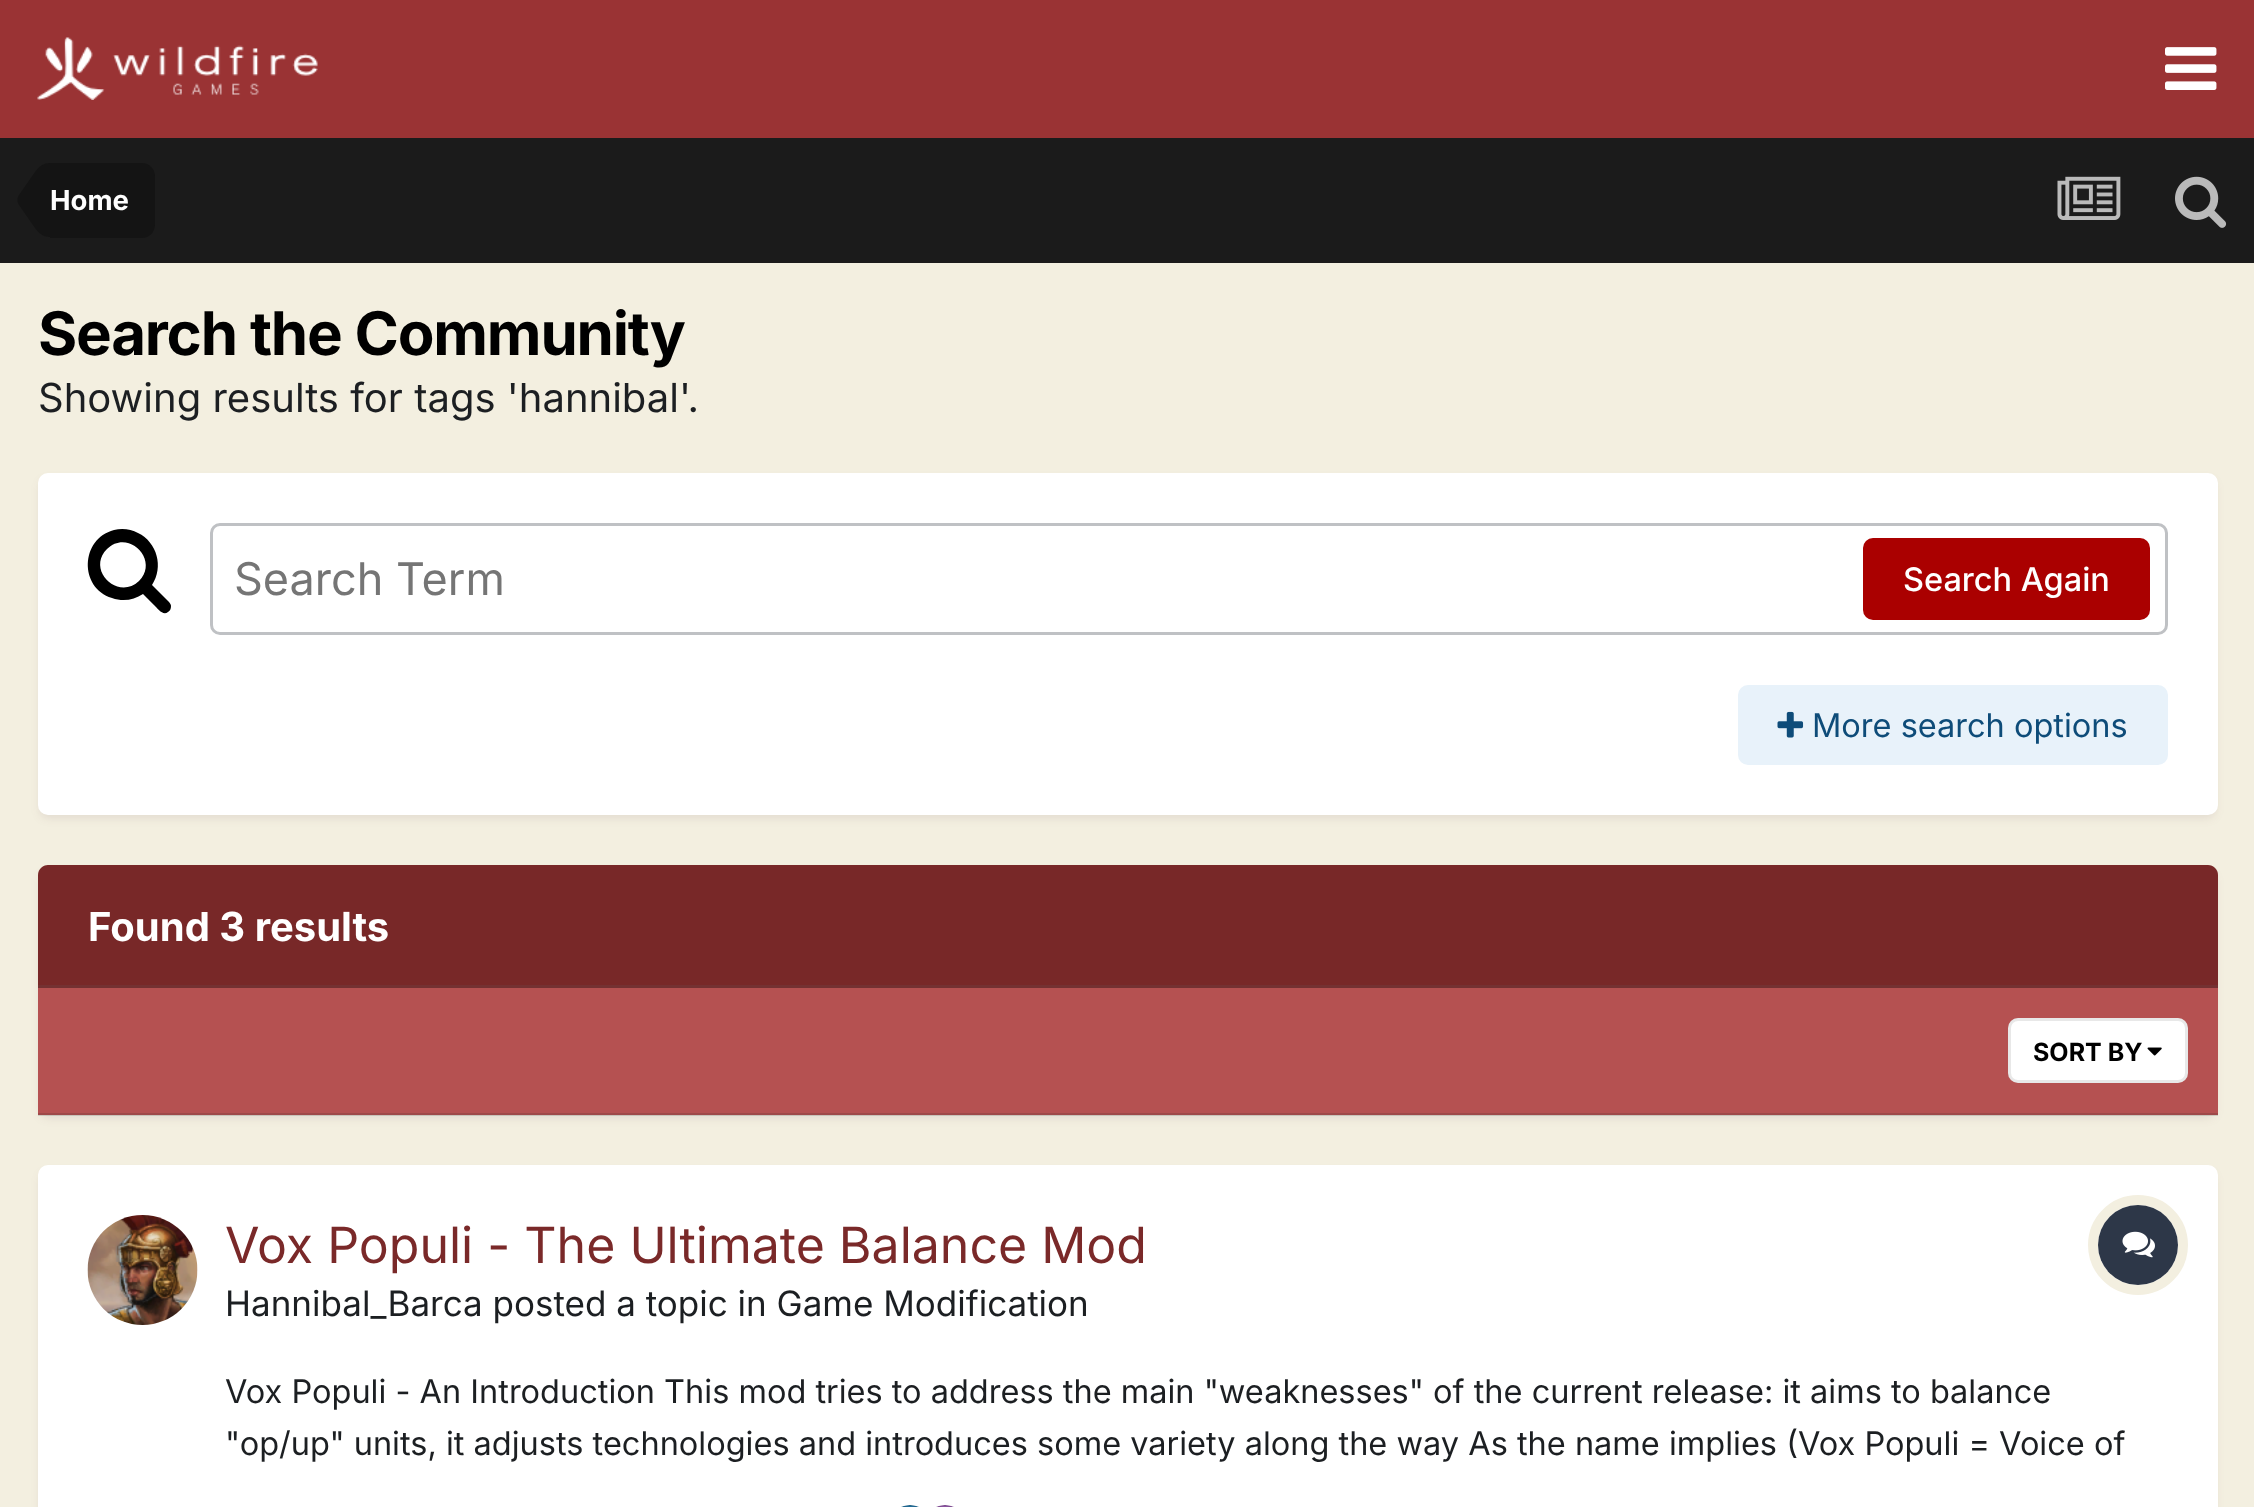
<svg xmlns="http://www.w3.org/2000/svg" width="2254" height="1507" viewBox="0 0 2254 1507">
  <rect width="100%" height="100%" fill="#f3efe0"/>
  <path d="M0 0h2254v138H0z" fill="#9a3334"/>
  <image x="37" y="37" width="281" height="63" href="img/1.png"/>
  <image x="2165" y="47" width="52" height="43" href="img/2.png"/>
  <path d="M0 138h2254v125H0z" fill="#1b1b1b"/>
  <path d="M50 163H142C149 163 155 169 155 176V225C155 232 149 238 142 238H50Z" fill="#141414"/>
  <path d="M50 200V237C44.5 237 39 234 35 228L19 205C18 203.5 17.5 202 17.5 200Z" fill="#141414"/>
  <path d="M50 200H17.5C17.5 198 18 196.5 19 195L35 172C39 166 44.5 163 50 163Z" fill="#141414"/>
  <image x="2057" y="176" width="64" height="44" href="img/3.png"/>
  <image x="2175" y="176" width="52" height="52" href="img/4.png"/>
  <rect x="40" y="480" width="2175" height="338" rx="8" fill="#4a283a1a" filter="blur(5px)"/>
  <rect x="38" y="473" width="2180" height="342" rx="10" fill="#fff"/>
  <path d="M139 581C160 560 128 528 107 549C86 570 118 601 139 581ZM171 606C171 609 170 611 168 612C163 616 158 609 154 605L143 594C134 600 123 602 112 598C79 588 80 539 114 530C122 528 131 529 138 533C157 542 164 567 152 585L169 602C170 603 171 605 171 606Z" fill="#000"/>
  <rect x="211.5" y="524.5" width="1955" height="109" rx="8.5" fill="none" stroke="#bfc1c4" stroke-width="3"/>
  <rect x="1863" y="538" width="287" height="82" rx="10" fill="#a00"/>
  <rect x="1738" y="685" width="430" height="80" rx="10" fill="#e8f2fa"/>
  <image x="1777" y="711" width="27" height="27" href="img/5.png"/>
  <rect x="40" y="873" width="2175" height="245" rx="8" fill="#4a283a1a" filter="blur(5px)"/>
  <path d="M48 865H2208C2213.5 865 2218 869.5 2218 875V988H38V875C38 869.5 42.5 865 48 865Z" fill="#782828"/>
  <path d="M38 985h2180v3H38z" fill="#743132"/>
  <path d="M38 988h2180v127H38z" fill="#b55151"/>
  <path d="M38 1113h2180v3H38z" fill="#1c1f2226"/>
  <rect x="2008" y="1018" width="180" height="65" rx="10" fill="#fff"/>
  <image x="2147" y="1047" width="15" height="9" href="img/6.png"/>
  <rect x="2009.5" y="1019.5" width="177" height="62" rx="8.5" fill="none" stroke="#1c1f221a" stroke-width="3"/>
  <rect x="40" y="1173" width="2175" height="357" rx="8" fill="#4a283a1a" filter="blur(5px)"/>
  <rect x="38" y="1165" width="2180" height="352" rx="10" fill="#fff"/>
  <image x="87" y="1215" width="111" height="110" href="img/7.png"/>
  <circle cx="2138" cy="1245" r="45" fill="none" stroke="#f3efe0" stroke-width="10"/>
  <circle cx="2138" cy="1245" r="40" fill="#2d3748"/>
  <image x="2122" y="1231" width="33" height="27" href="img/8.png"/>
  <image x="901" y="1505" width="18" height="2" href="img/9.png"/>
  <image x="936" y="1505" width="18" height="2" href="img/10.png"/>
  <text x="50" y="210" font-family="Inter" font-size="27.5" font-weight="bold" fill="#fff">Home</text>
  <text x="38" y="355" font-family="Inter" font-size="60" font-weight="bold" letter-spacing="-1.2" fill="#000">Search the Community</text>
  <text x="38" y="412" font-family="Inter" font-size="40" fill="#1c1f22">Showing results for tags 'hannibal'.</text>
  <text x="234" y="595" font-family="Inter" font-size="45" fill="#757575">Search Term</text>
  <text x="1903" y="591" font-family="Inter" font-size="32.5" font-weight="500" fill="#fff">Search Again</text>
  <text x="1812" y="737" font-family="Inter" font-size="32.5" fill="#0e4c79">More search options</text>
  <text x="88" y="941" font-family="Inter" font-size="40" font-weight="bold" fill="#fff">Found 3 results</text>
  <text x="2033" y="1061" font-family="Inter" font-size="25" font-weight="bold" fill="#000">SORT BY</text>
  <text x="225" y="1263" font-family="Inter" font-size="50" fill="#7a2929">Vox Populi - The Ultimate Balance Mod</text>
  <text x="225" y="1316" font-family="Inter" font-size="35" fill="#1c1f22">Hannibal_Barca posted a topic in Game Modification</text>
  <g font-family="Inter" font-size="32.5" fill="#1c1f22">
    <text x="225" y="1403">Vox Populi - An Introduction This mod tries to address the main "weaknesses" of the current release: it aims to balance</text>
    <text x="225" y="1455">"op/up" units, it adjusts technologies and introduces some variety along the way As the name implies (Vox Populi = Voice of</text>
  </g>
</svg>
